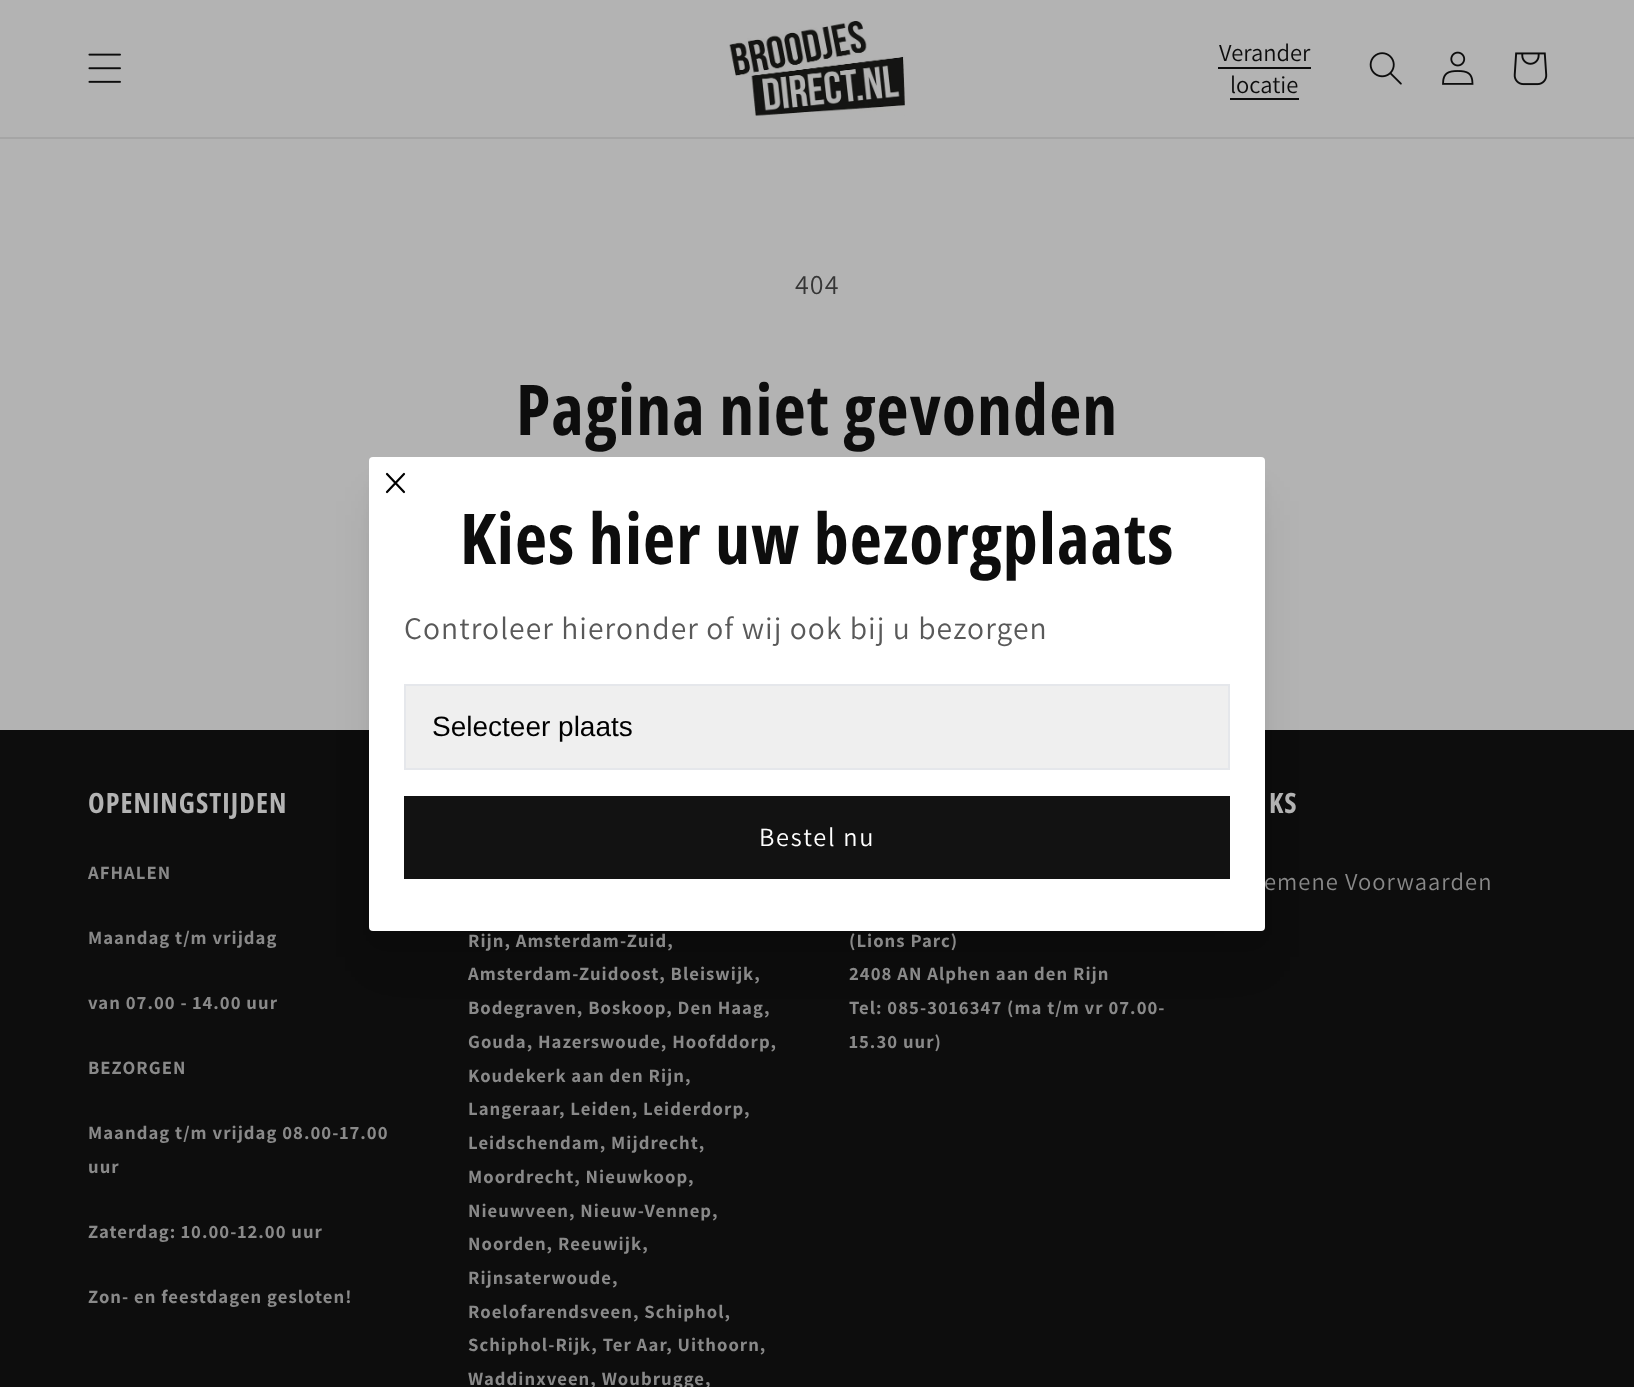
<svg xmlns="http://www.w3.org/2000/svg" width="1634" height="1387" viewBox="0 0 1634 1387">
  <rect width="100%" height="100%" fill="#b3b3b3"/>
  <path d="M0 137h1634v2H0z" fill="#a5a5a5"/>
  <image x="88" y="53" width="33" height="30" href="img/1.png"/>
  <image x="729" y="21" width="176" height="95" href="img/2.png"/>
  <path d="M1218 67h93v2H1218z" fill="#0d0d0d"/>
  <path d="M1230 98h69v2H1230z" fill="#0d0d0d"/>
  <image x="1369" y="52" width="33" height="33" href="img/3.png"/>
  <image x="1442" y="51" width="32" height="34" href="img/4.png"/>
  <image x="1513" y="52" width="35" height="34" href="img/5.png"/>
  <path d="M0 730h1634v657H0z" fill="#0d0d0d"/>
  <path d="M380 481h875v454H380z" fill="#0000001a" filter="blur(9px)"/>
  <path d="M378 501h879v456H378z" fill="#0000001a" filter="blur(22px)"/>
  <g font-family="Assistant" font-size="24.5" fill="#0d0d0d">
    <text x="1219" y="61">Verander</text>
    <text x="1230" y="93">locatie</text>
  </g>
  <text x="795" y="294" font-family="Assistant" font-size="28" letter-spacing="1.05" fill="#363636">404</text>
  <text x="516" y="435" font-family="Open Sans Condensed" font-size="70" font-weight="bold" letter-spacing="1.05" fill="#0d0d0d">Pagina niet gevonden</text>
  <text x="88" y="813" font-family="Open Sans Condensed" font-size="28" font-weight="bold" letter-spacing="1.05" fill="#b3b3b3">OPENINGSTIJDEN</text>
  <g font-family="Assistant" font-size="18.75" font-weight="bold" letter-spacing="1.05" fill="#898989">
    <text x="88" y="879">AFHALEN</text>
    <text x="88" y="944">Maandag t/m vrijdag</text>
    <text x="88" y="1009">van 07.00 - 14.00 uur</text>
    <text x="88" y="1074">BEZORGEN</text>
    <text x="88" y="1139">Maandag t/m vrijdag 08.00-17.00</text>
    <text x="88" y="1173">uur</text>
    <text x="88" y="1238">Zaterdag: 10.00-12.00 uur</text>
    <text x="88" y="1303">Zon- en feestdagen gesloten!</text>
  </g>
  <text x="1269" y="813" font-family="Open Sans Condensed" font-size="28" font-weight="bold" letter-spacing="1.05" fill="#b3b3b3">KS</text>
  <text x="1264" y="890" font-family="Assistant" font-size="24.5" letter-spacing="1.05" fill="#898989">emene Voorwaarden</text>
  <rect x="369" y="457" width="896" height="474" rx="4" fill="#fff"/>
  <path d="M404 796h826v83H404z" fill="#121212"/>
  <text x="759" y="846" font-family="Assistant" font-size="26.25" letter-spacing="1.75" fill="#fff">Bestel nu</text>
  <path d="M387 492L404 474M387 474L404 492" fill="none" stroke="#000" stroke-width="2.2" stroke-linecap="round" stroke-linejoin="round"/>
  <path d="M405 685h824v84H405z" fill="#efefef" stroke="#e5e7eb" stroke-width="2"/>
  <text x="432" y="736" font-family="Liberation Sans" font-size="28" fill="#000">Selecteer plaats</text>
  <text x="404" y="639" font-family="Assistant" font-size="31.5" letter-spacing="1.05" fill="#595959">Controleer hieronder of wij ook bij u bezorgen</text>
  <text x="460" y="564" font-family="Open Sans Condensed" font-size="70" font-weight="bold" letter-spacing="1.05" fill="#0d0d0d">Kies hier uw bezorgplaats</text>
  <g font-family="Assistant" font-size="18.75" font-weight="bold" letter-spacing="1.05" fill="#898989">
    <text x="468" y="947">Rijn, Amsterdam-Zuid,</text>
    <text x="468" y="980">Amsterdam-Zuidoost, Bleiswijk,</text>
    <text x="468" y="1014">Bodegraven, Boskoop, Den Haag,</text>
    <text x="468" y="1048">Gouda, Hazerswoude, Hoofddorp,</text>
    <text x="468" y="1082">Koudekerk aan den Rijn,</text>
    <text x="468" y="1115">Langeraar, Leiden, Leiderdorp,</text>
    <text x="468" y="1149">Leidschendam, Mijdrecht,</text>
    <text x="468" y="1183">Moordrecht, Nieuwkoop,</text>
    <text x="468" y="1217">Nieuwveen, Nieuw-Vennep,</text>
    <text x="468" y="1250">Noorden, Reeuwijk,</text>
    <text x="468" y="1284">Rijnsaterwoude,</text>
    <text x="468" y="1318">Roelofarendsveen, Schiphol,</text>
    <text x="468" y="1351">Schiphol-Rijk, Ter Aar, Uithoorn,</text>
    <text x="468" y="1385">Waddinxveen, Woubrugge,</text>
    <text x="849" y="947">(Lions Parc)</text>
    <text x="849" y="980">2408 AN Alphen aan den Rijn</text>
    <text x="849" y="1014">Tel: 085-3016347 (ma t/m vr 07.00-</text>
    <text x="849" y="1048">15.30 uur)</text>
  </g>
</svg>
